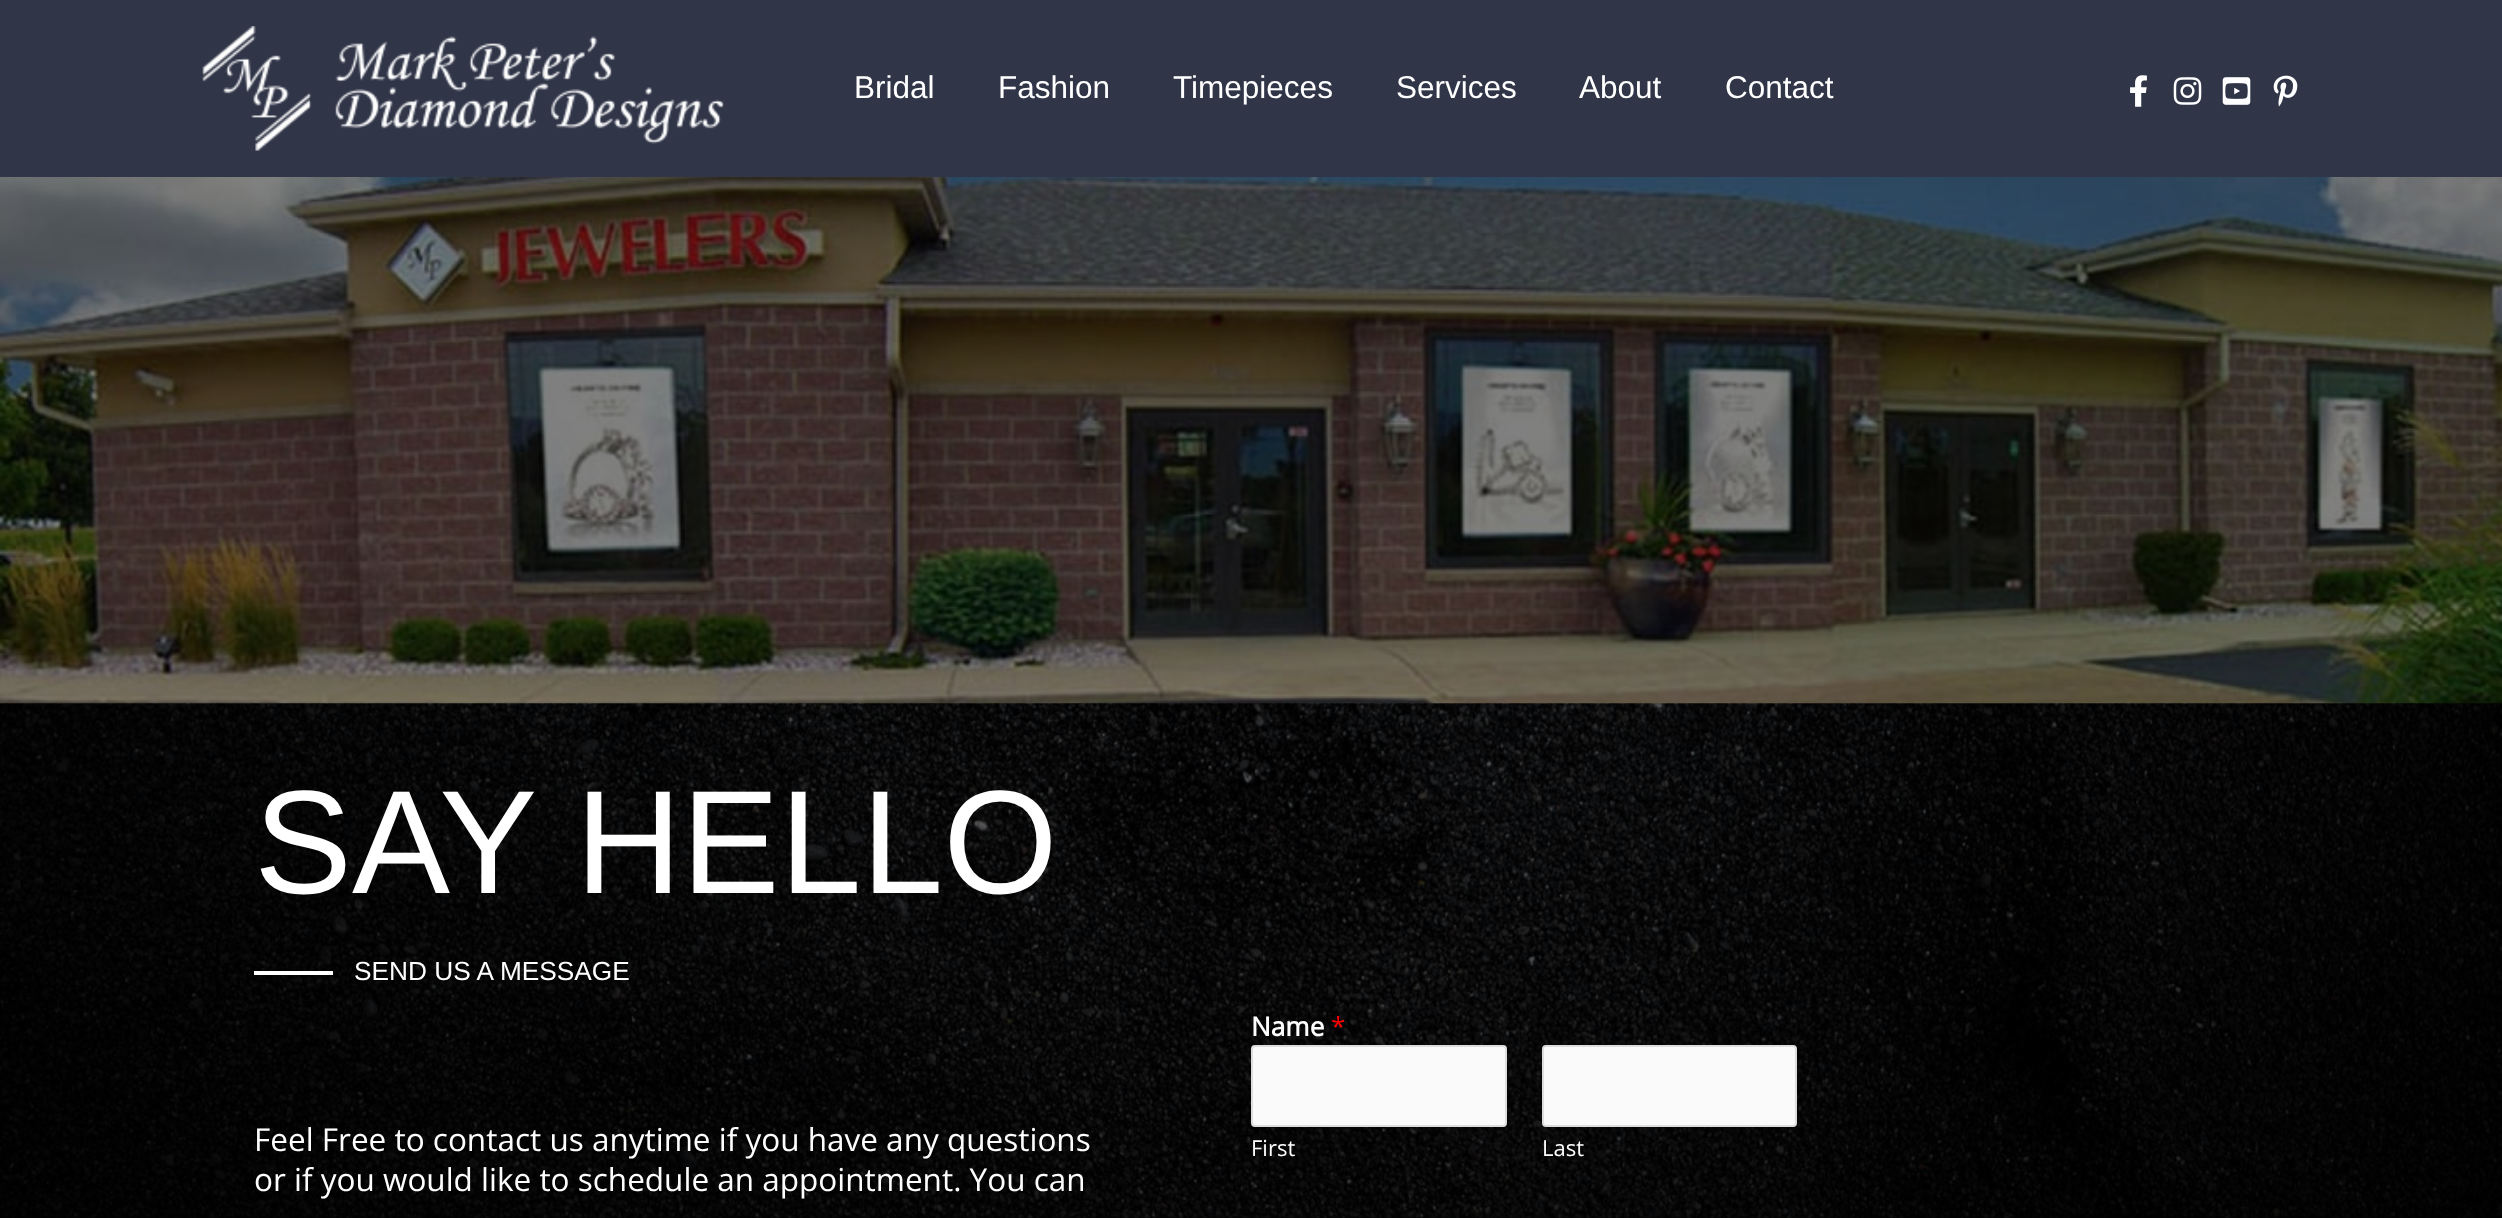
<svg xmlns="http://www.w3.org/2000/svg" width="2502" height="1218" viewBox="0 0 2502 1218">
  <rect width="100%" height="100%" fill="#000"/>
  <path d="M0 0h2502v177H0z" fill="#303548"/>
  <image x="202" y="26" width="522" height="125" href="img/1.png"/>
  <image x="2130" y="75" width="17" height="32" href="img/2.png"/>
  <image x="2173" y="77" width="29" height="28" href="img/3.png"/>
  <image x="2222" y="77" width="29" height="28" href="img/4.png"/>
  <image x="2273" y="75" width="25" height="32" href="img/5.png"/>
  <image x="0" y="177" width="2502" height="527" href="img/6.png"/>
  <image x="0" y="703" width="2502" height="515" href="img/7.png"/>
  <path d="M254 971h79v4H254z" fill="#fff"/>
  <rect x="1252" y="1046" width="254" height="80" rx="3" fill="#fafafa" stroke="#ddd" stroke-width="2"/>
  <rect x="1543" y="1046" width="253" height="80" rx="3" fill="#fafafa" stroke="#ddd" stroke-width="2"/>
  <g font-family="Liberation Sans" font-size="31.5" fill="#fff">
    <text x="854" y="98">Bridal</text>
    <text x="998" y="98">Fashion</text>
    <text x="1173" y="98">Timepieces</text>
    <text x="1396" y="98">Services</text>
    <text x="1579" y="98">About</text>
    <text x="1725" y="98">Contact</text>
  </g>
  <text x="254" y="893" font-family="Liberation Sans" font-size="147" fill="#fff">SAY HELLO</text>
  <text x="354" y="980" font-family="Liberation Sans" font-size="26.25" fill="#fff">SEND US A MESSAGE</text>
  <g font-family="Open Sans" font-size="31.5" fill="#fff">
    <text x="254" y="1151">Feel Free to contact us anytime if you have any questions</text>
    <text x="254" y="1191">or if you would like to schedule an appointment. You can</text>
  </g>
  <text x="1251" y="1036" font-family="Open Sans" font-size="26.25" font-weight="bold" fill="#fff">Name</text>
  <text x="1331" y="1036" font-family="Open Sans" font-size="26.25" fill="#f00">*</text>
  <g font-family="Open Sans" font-size="22" fill="#fff">
    <text x="1251" y="1156">First</text>
    <text x="1542" y="1156">Last</text>
  </g>
</svg>
